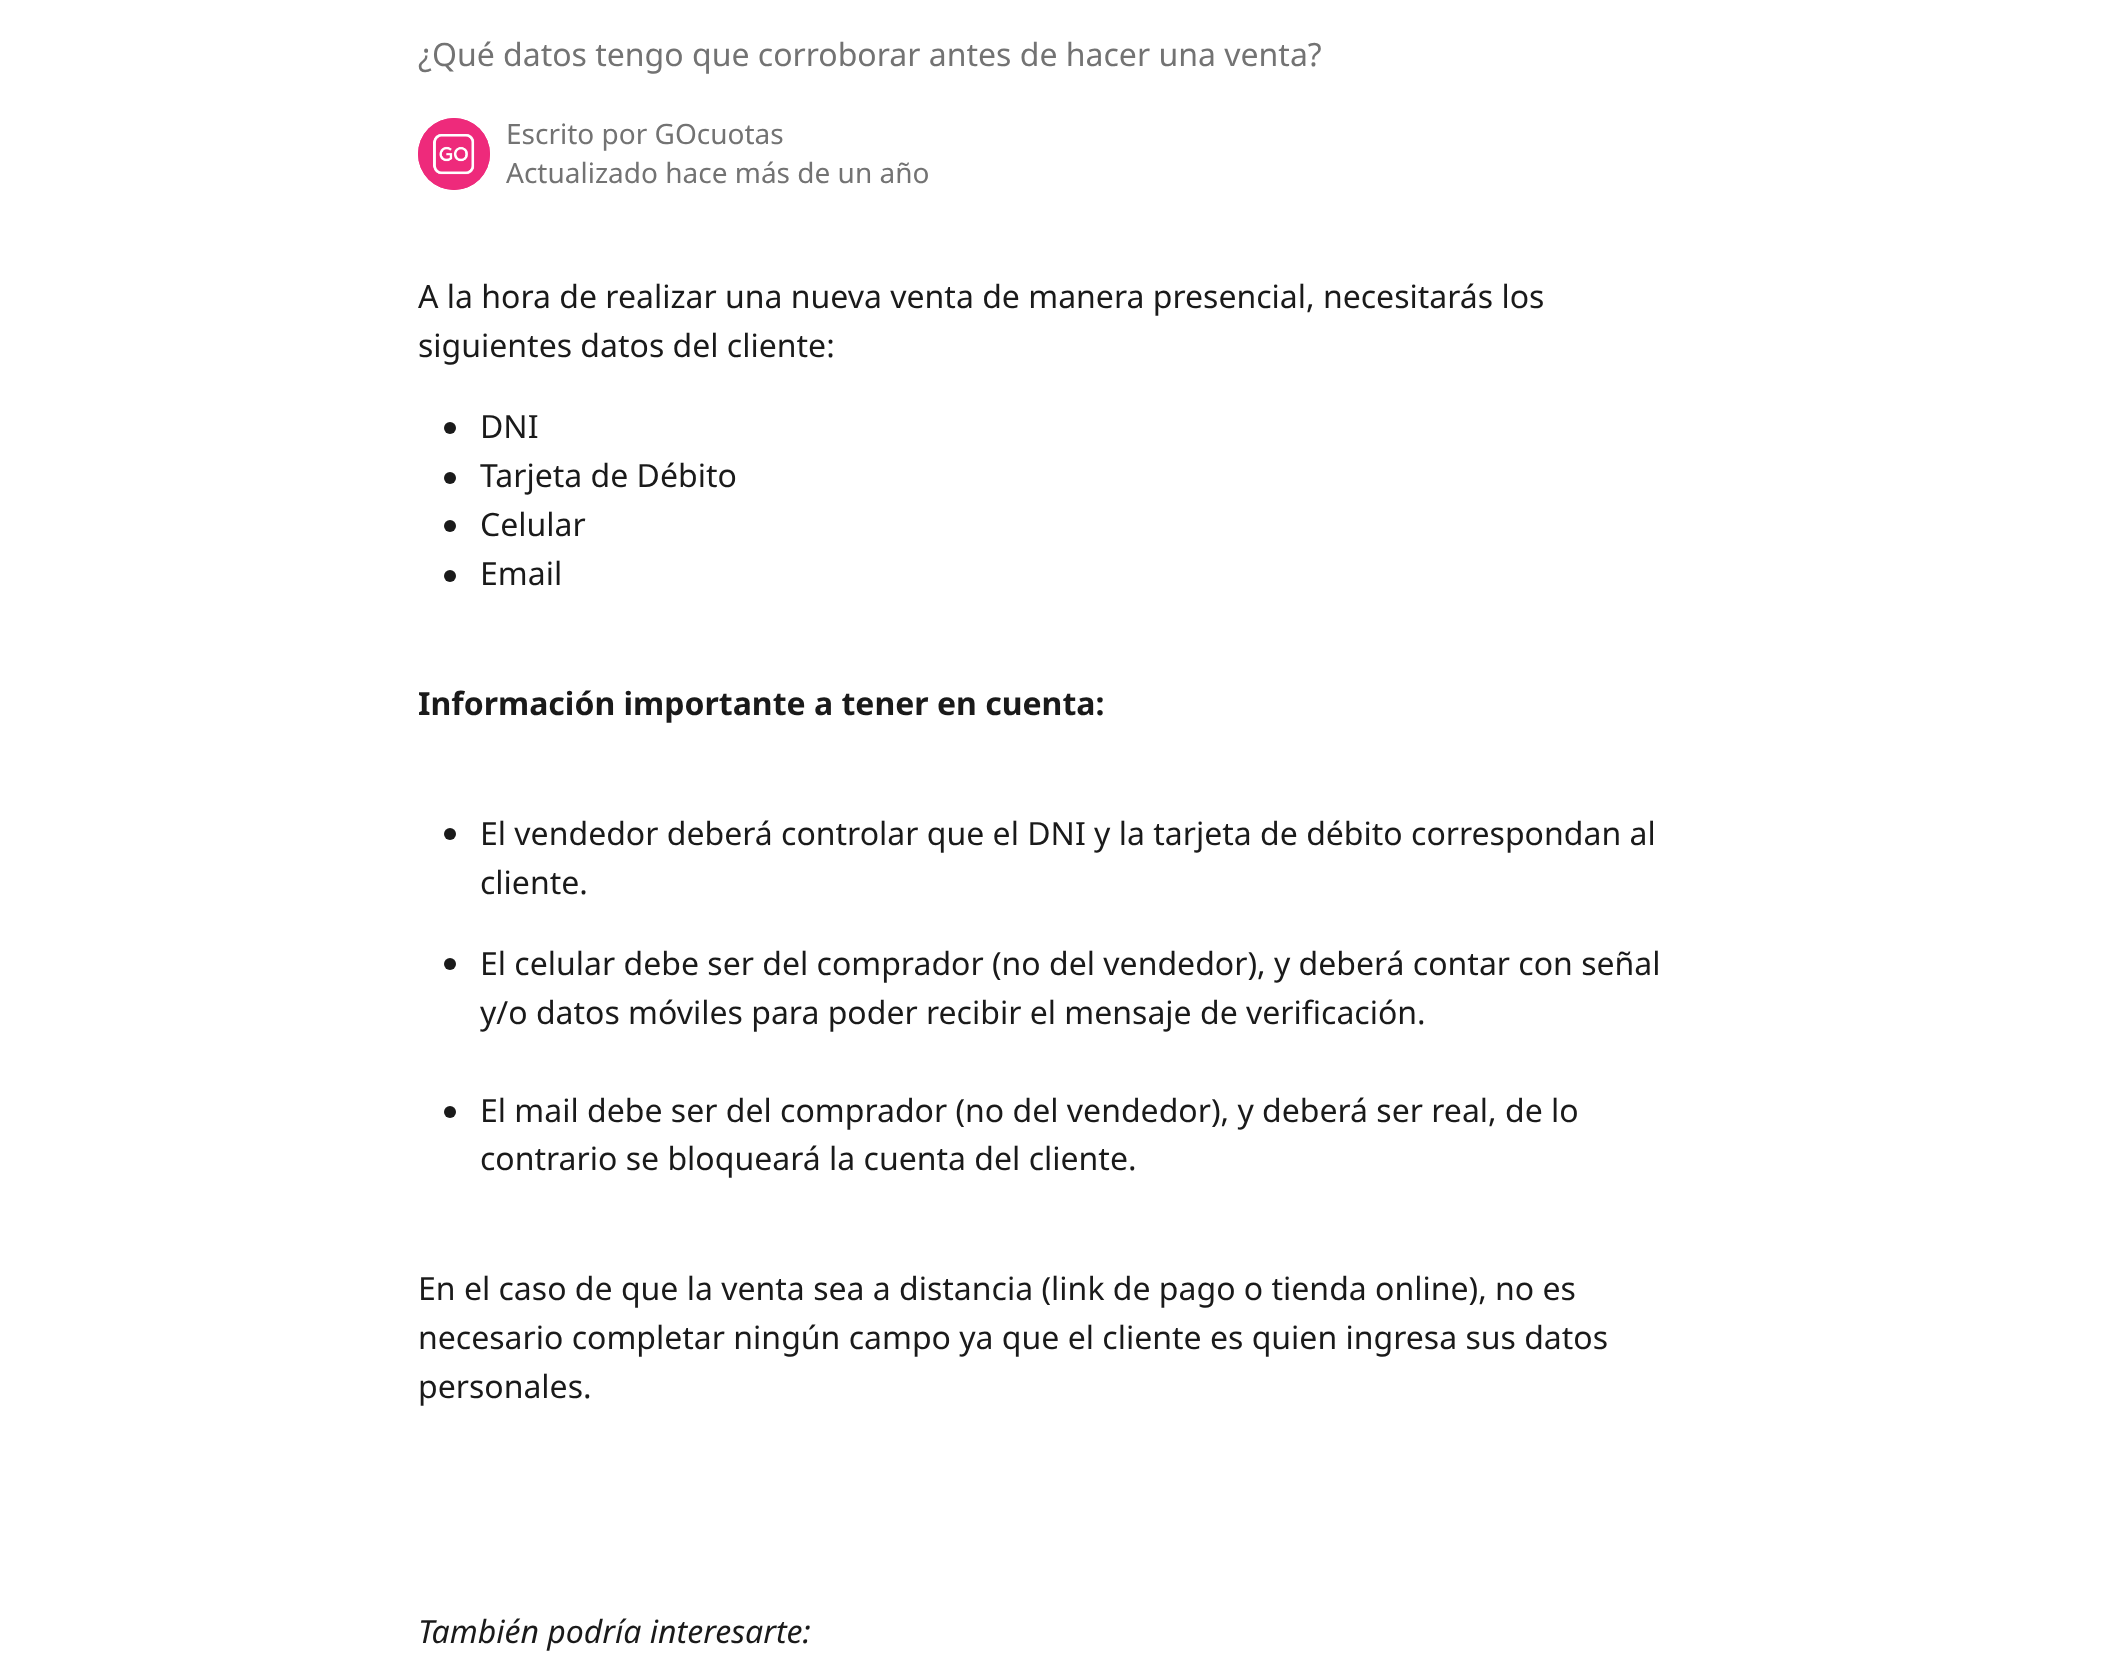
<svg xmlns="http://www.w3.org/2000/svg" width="2115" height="1679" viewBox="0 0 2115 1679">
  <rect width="100%" height="100%" fill="#fff"/>
  <circle cx="454" cy="154" r="36" fill="#ee2b7c"/>
  <image x="418" y="118" width="72" height="72" href="img/1.png"/>
  <circle cx="450" cy="428" r="6" fill="#1a1a1a"/>
  <circle cx="450" cy="478" r="6" fill="#1a1a1a"/>
  <circle cx="450" cy="526" r="6" fill="#1a1a1a"/>
  <circle cx="450" cy="576" r="6" fill="#1a1a1a"/>
  <circle cx="450" cy="834" r="6" fill="#1a1a1a"/>
  <circle cx="450" cy="964" r="6" fill="#1a1a1a"/>
  <circle cx="450" cy="1112" r="6" fill="#1a1a1a"/>
  <text x="418" y="66" font-family="Noto Sans" font-size="32" fill="#737373">¿Qué datos tengo que corroborar antes de hacer una venta?</text>
  <g font-family="Noto Sans" font-size="28" fill="#737373">
    <text x="506" y="144">Escrito por GOcuotas</text>
    <text x="506" y="183">Actualizado hace más de un año</text>
  </g>
  <g font-family="Noto Sans" font-size="32" fill="#1a1a1a">
    <text x="418" y="308">A la hora de realizar una nueva venta de manera presencial, necesitarás los</text>
    <text x="418" y="357">siguientes datos del cliente:</text>
    <text x="480" y="438">DNI</text>
    <text x="480" y="487">Tarjeta de Débito</text>
    <text x="480" y="536">Celular</text>
    <text x="480" y="585">Email</text>
  </g>
  <text x="418" y="715" font-family="Noto Sans" font-size="32" font-weight="bold" fill="#1a1a1a">Información importante a tener en cuenta:</text>
  <g font-family="Noto Sans" font-size="32" fill="#1a1a1a">
    <text x="480" y="845">El vendedor deberá controlar que el DNI y la tarjeta de débito correspondan al</text>
    <text x="480" y="894">cliente.</text>
    <text x="480" y="975">El celular debe ser del comprador (no del vendedor), y deberá contar con señal</text>
    <text x="480" y="1024">y/o datos móviles para poder recibir el mensaje de verificación.</text>
    <text x="480" y="1122">El mail debe ser del comprador (no del vendedor), y deberá ser real, de lo</text>
    <text x="480" y="1170">contrario se bloqueará la cuenta del cliente.</text>
    <text x="418" y="1300">En el caso de que la venta sea a distancia (link de pago o tienda online), no es</text>
    <text x="418" y="1349">necesario completar ningún campo ya que el cliente es quien ingresa sus datos</text>
    <text x="418" y="1398">personales.</text>
  </g>
  <text x="418" y="1643" font-family="Noto Sans" font-size="32" font-style="italic" fill="#1a1a1a">También podría interesarte:</text>
</svg>
